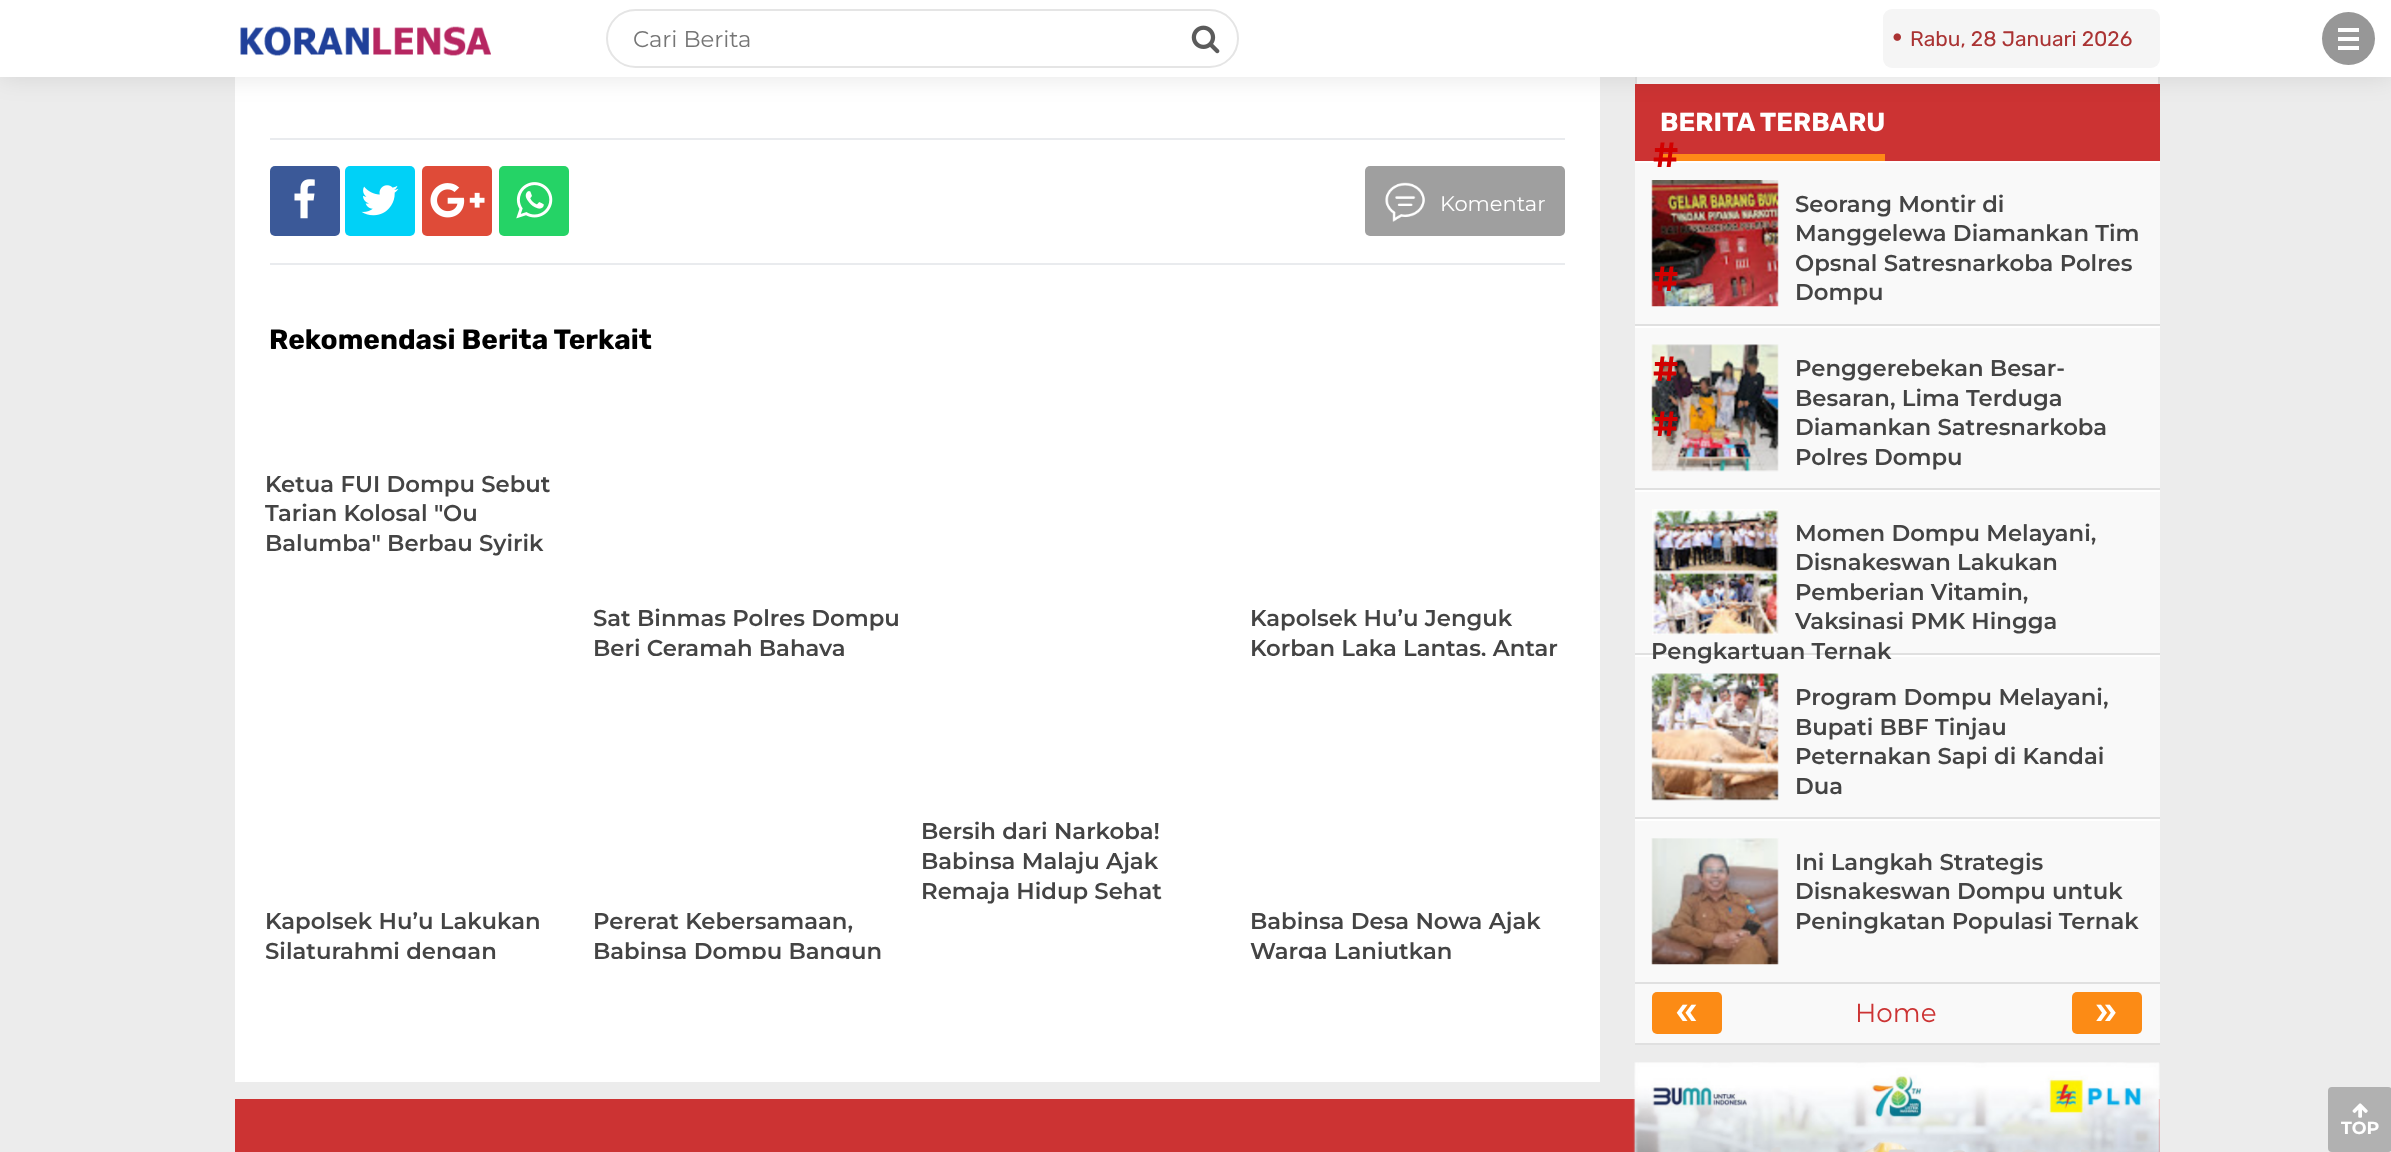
<svg xmlns="http://www.w3.org/2000/svg" width="2391" height="1152" viewBox="0 0 2391 1152">
  <defs>
    <clipPath id="clip1"><path d="M588 380h329v276H588z"/></clipPath>
    <clipPath id="clip2"><path d="M1244 380h329v276H1244z"/></clipPath>
    <clipPath id="clip3"><path d="M261 683h327v276H261z"/></clipPath>
    <clipPath id="clip4"><path d="M588 683h329v276H588z"/></clipPath>
    <clipPath id="clip5"><path d="M1244 683h329v276H1244z"/></clipPath>
  </defs>
  <rect width="100%" height="100%" fill="#ececec"/>
  <path d="M235 77h1365v1005H235z" fill="#fff"/>
  <path d="M1635 84h525v77H1635z" fill="#c33"/>
  <path d="M1637 77h521v7H1637z" fill="#f9f9f9"/>
  <path d="M2158 77h2v7H2158z" fill="#e0e0e0"/>
  <path d="M1635 77h2v7H1635z" fill="#e0e0e0"/>
  <path d="M0 0h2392v77H0z" fill="#0000001a" filter="blur(13px)"/>
  <path d="M0 0h2391v77H0z" fill="#fff"/>
  <image x="240" y="26" width="251" height="30" href="img/1.png"/>
  <rect x="607" y="10" width="631" height="57" rx="28.5" fill="none" stroke="#e5e5e5" stroke-width="2"/>
  <image x="1191" y="25" width="29" height="29" href="img/2.png"/>
  <rect x="1883" y="9" width="277" height="59" rx="9" fill="#f5f5f5"/>
  <image x="1893" y="33" width="8" height="8" href="img/3.png"/>
  <circle cx="2348.5" cy="38.5" r="26.5" fill="#979797"/>
  <path d="M2338 28h21v4H2338z" fill="#fff"/>
  <path d="M2338 37h21v4H2338z" fill="#fff"/>
  <path d="M2338 46h21v4H2338z" fill="#fff"/>
  <path d="M270 138h1295v2H270z" fill="#e9ebee"/>
  <path d="M270 263h1295v2H270z" fill="#e9ebee"/>
  <rect x="270" y="166" width="70" height="70" rx="5" fill="#3b5998"/>
  <image x="294" y="179" width="21" height="40" href="img/4.png"/>
  <rect x="345" y="166" width="70" height="70" rx="5" fill="#00d1f7"/>
  <image x="361" y="185" width="38" height="31" href="img/5.png"/>
  <rect x="422" y="166" width="70" height="70" rx="5" fill="#df4b38"/>
  <image x="430" y="183" width="55" height="35" href="img/6.png"/>
  <rect x="499" y="166" width="70" height="70" rx="5" fill="#25d366"/>
  <image x="516" y="182" width="37" height="37" href="img/7.png"/>
  <rect x="1365" y="166" width="200" height="70" rx="5" fill="#9f9f9f"/>
  <image x="1385" y="182" width="40" height="40" href="img/8.png"/>
  <path d="M1661 154h224v7H1661z" fill="#fe8917"/>
  <path d="M1635 163h525v161H1635z" fill="#f9f9f9"/>
  <path d="M1635 161h525v2H1635z" fill="#fff"/>
  <path d="M1635 324h525v2H1635z" fill="#e0e0e0"/>
  <image x="1651" y="180" width="128" height="127" href="img/9.png"/>
  <path d="M1635 328h525v160H1635z" fill="#f9f9f9"/>
  <path d="M1635 326h525v2H1635z" fill="#fff"/>
  <path d="M1635 488h525v2H1635z" fill="#e0e0e0"/>
  <path d="M1652 345h126v126H1652z" fill="#fff"/>
  <image x="1651" y="344" width="128" height="128" href="img/10.png"/>
  <path d="M1635 492h525v161H1635z" fill="#f9f9f9"/>
  <path d="M1635 490h525v2H1635z" fill="#fff"/>
  <path d="M1635 653h525v2H1635z" fill="#e0e0e0"/>
  <path d="M1652 509h126v126H1652z" fill="#fff"/>
  <image x="1652" y="509" width="127" height="126" href="img/11.png"/>
  <path d="M1635 657h525v160H1635z" fill="#f9f9f9"/>
  <path d="M1635 655h525v2H1635z" fill="#fff"/>
  <path d="M1635 817h525v2H1635z" fill="#e0e0e0"/>
  <path d="M1652 674h126v126H1652z" fill="#fff"/>
  <image x="1651" y="673" width="128" height="128" href="img/12.png"/>
  <path d="M1635 821h525v161H1635z" fill="#f9f9f9"/>
  <path d="M1635 819h525v2H1635z" fill="#fff"/>
  <path d="M1635 982h525v2H1635z" fill="#e0e0e0"/>
  <path d="M1652 838h126v126H1652z" fill="#fff"/>
  <image x="1651" y="838" width="128" height="127" href="img/13.png"/>
  <path d="M1635 984h525v59H1635z" fill="#f9f9f9"/>
  <path d="M1635 1043h525v2H1635z" fill="#e0e0e0"/>
  <rect x="1652" y="992" width="70" height="42" rx="5" fill="#fc8b15"/>
  <rect x="2072" y="992" width="70" height="42" rx="5" fill="#fc8b15"/>
  <path d="M235 1099h1925v53H235z" fill="#c33"/>
  <image x="1633" y="1062" width="527" height="90" href="img/14.png"/>
  <image x="1770" y="1147" width="11" height="5" href="img/15.png"/>
  <image x="1841" y="1151" width="2" height="1" href="img/16.png"/>
  <image x="1888" y="1149" width="27" height="3" href="img/17.png"/>
  <image x="1953" y="1150" width="12" height="2" href="img/18.png"/>
  <image x="2022" y="1149" width="15" height="3" href="img/19.png"/>
  <image x="2081" y="1149" width="9" height="3" href="img/20.png"/>
  <rect x="2328" y="1087" width="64" height="65" rx="4" fill="#b1b1b1"/>
  <image x="2352" y="1103" width="16" height="15" href="img/21.png"/>
  <text x="633" y="47" font-family="Montserrat" font-size="22.75" fill="#757575">Cari Berita</text>
  <text x="1910" y="46" font-family="Rubik" font-size="21" fill="#a33">Rabu, 28 Januari 2026</text>
  <text x="1440" y="211" font-family="Montserrat" font-size="21" fill="#fff">Komentar</text>
  <text x="269" y="349" font-family="Rubik" font-size="28" font-weight="bold" fill="#000">Rekomendasi Berita Terkait</text>
  <g font-family="Montserrat" font-size="22.75" font-weight="600" fill="#444">
    <text x="265" y="492">Ketua FUI Dompu Sebut</text>
    <text x="265" y="521">Tarian Kolosal "Ou</text>
    <text x="265" y="551">Balumba" Berbau Syirik</text>
    <text x="593" y="626">Sat Binmas Polres Dompu</text>
  </g>
  <g clip-path="url(#clip1)">
    <text x="593" y="656" font-family="Montserrat" font-size="22.75" font-weight="600" fill="#444">Beri Ceramah Bahaya</text>
  </g>
  <text x="1250" y="626" font-family="Montserrat" font-size="22.75" font-weight="600" fill="#444">Kapolsek Hu’u Jenguk</text>
  <g clip-path="url(#clip2)">
    <text x="1250" y="656" font-family="Montserrat" font-size="22.75" font-weight="600" fill="#444">Korban Laka Lantas, Antar</text>
  </g>
  <g font-family="Montserrat" font-size="22.75" font-weight="600" fill="#444">
    <text x="921" y="839">Bersih dari Narkoba!</text>
    <text x="921" y="869">Babinsa Malaju Ajak</text>
    <text x="921" y="899">Remaja Hidup Sehat</text>
    <text x="265" y="929">Kapolsek Hu’u Lakukan</text>
  </g>
  <g clip-path="url(#clip3)">
    <text x="265" y="959" font-family="Montserrat" font-size="22.75" font-weight="600" fill="#444">Silaturahmi dengan</text>
  </g>
  <text x="593" y="929" font-family="Montserrat" font-size="22.75" font-weight="600" fill="#444">Pererat Kebersamaan,</text>
  <g clip-path="url(#clip4)">
    <text x="593" y="959" font-family="Montserrat" font-size="22.75" font-weight="600" fill="#444">Babinsa Dompu Bangun</text>
  </g>
  <text x="1250" y="929" font-family="Montserrat" font-size="22.75" font-weight="600" fill="#444">Babinsa Desa Nowa Ajak</text>
  <g clip-path="url(#clip5)">
    <text x="1250" y="959" font-family="Montserrat" font-size="22.75" font-weight="600" fill="#444">Warga Lanjutkan</text>
  </g>
  <text x="1660" y="131" font-family="Rubik" font-size="26.25" font-weight="bold" fill="#fff">BERITA TERBARU</text>
  <g font-family="Montserrat" font-size="22.75" font-weight="600" fill="#444">
    <text x="1795" y="212">Seorang Montir di</text>
    <text x="1795" y="241">Manggelewa Diamankan Tim</text>
    <text x="1795" y="271">Opsnal Satresnarkoba Polres</text>
    <text x="1795" y="300">Dompu</text>
    <text x="1795" y="376">Penggerebekan Besar-</text>
    <text x="1795" y="406">Besaran, Lima Terduga</text>
    <text x="1795" y="435">Diamankan Satresnarkoba</text>
    <text x="1795" y="465">Polres Dompu</text>
    <text x="1795" y="541">Momen Dompu Melayani,</text>
    <text x="1795" y="570">Disnakeswan Lakukan</text>
    <text x="1795" y="600">Pemberian Vitamin,</text>
    <text x="1795" y="629">Vaksinasi PMK Hingga</text>
    <text x="1651" y="659">Pengkartuan Ternak</text>
    <text x="1795" y="705">Program Dompu Melayani,</text>
    <text x="1795" y="735">Bupati BBF Tinjau</text>
    <text x="1795" y="764">Peternakan Sapi di Kandai</text>
    <text x="1795" y="794">Dua</text>
    <text x="1795" y="870">Ini Langkah Strategis</text>
    <text x="1795" y="899">Disnakeswan Dompu untuk</text>
    <text x="1795" y="929">Peningkatan Populasi Ternak</text>
  </g>
  <text x="1675" y="1024" font-family="Montserrat" font-size="42" font-weight="600" fill="#fff">«</text>
  <text x="1855" y="1022" font-family="Montserrat" font-size="26.25" fill="#c33">Home</text>
  <text x="2095" y="1024" font-family="Montserrat" font-size="42" font-weight="600" fill="#fff">»</text>
  <g font-family="Montserrat" font-size="35" font-weight="bold" fill="#d20000">
    <text x="1653" y="167">#</text>
    <text x="1653" y="291">#</text>
    <text x="1653" y="381">#</text>
    <text x="1653" y="436">#</text>
  </g>
  <text x="2341" y="1134" font-family="Montserrat" font-size="17.5" font-weight="bold" fill="#fff">TOP</text>
</svg>
